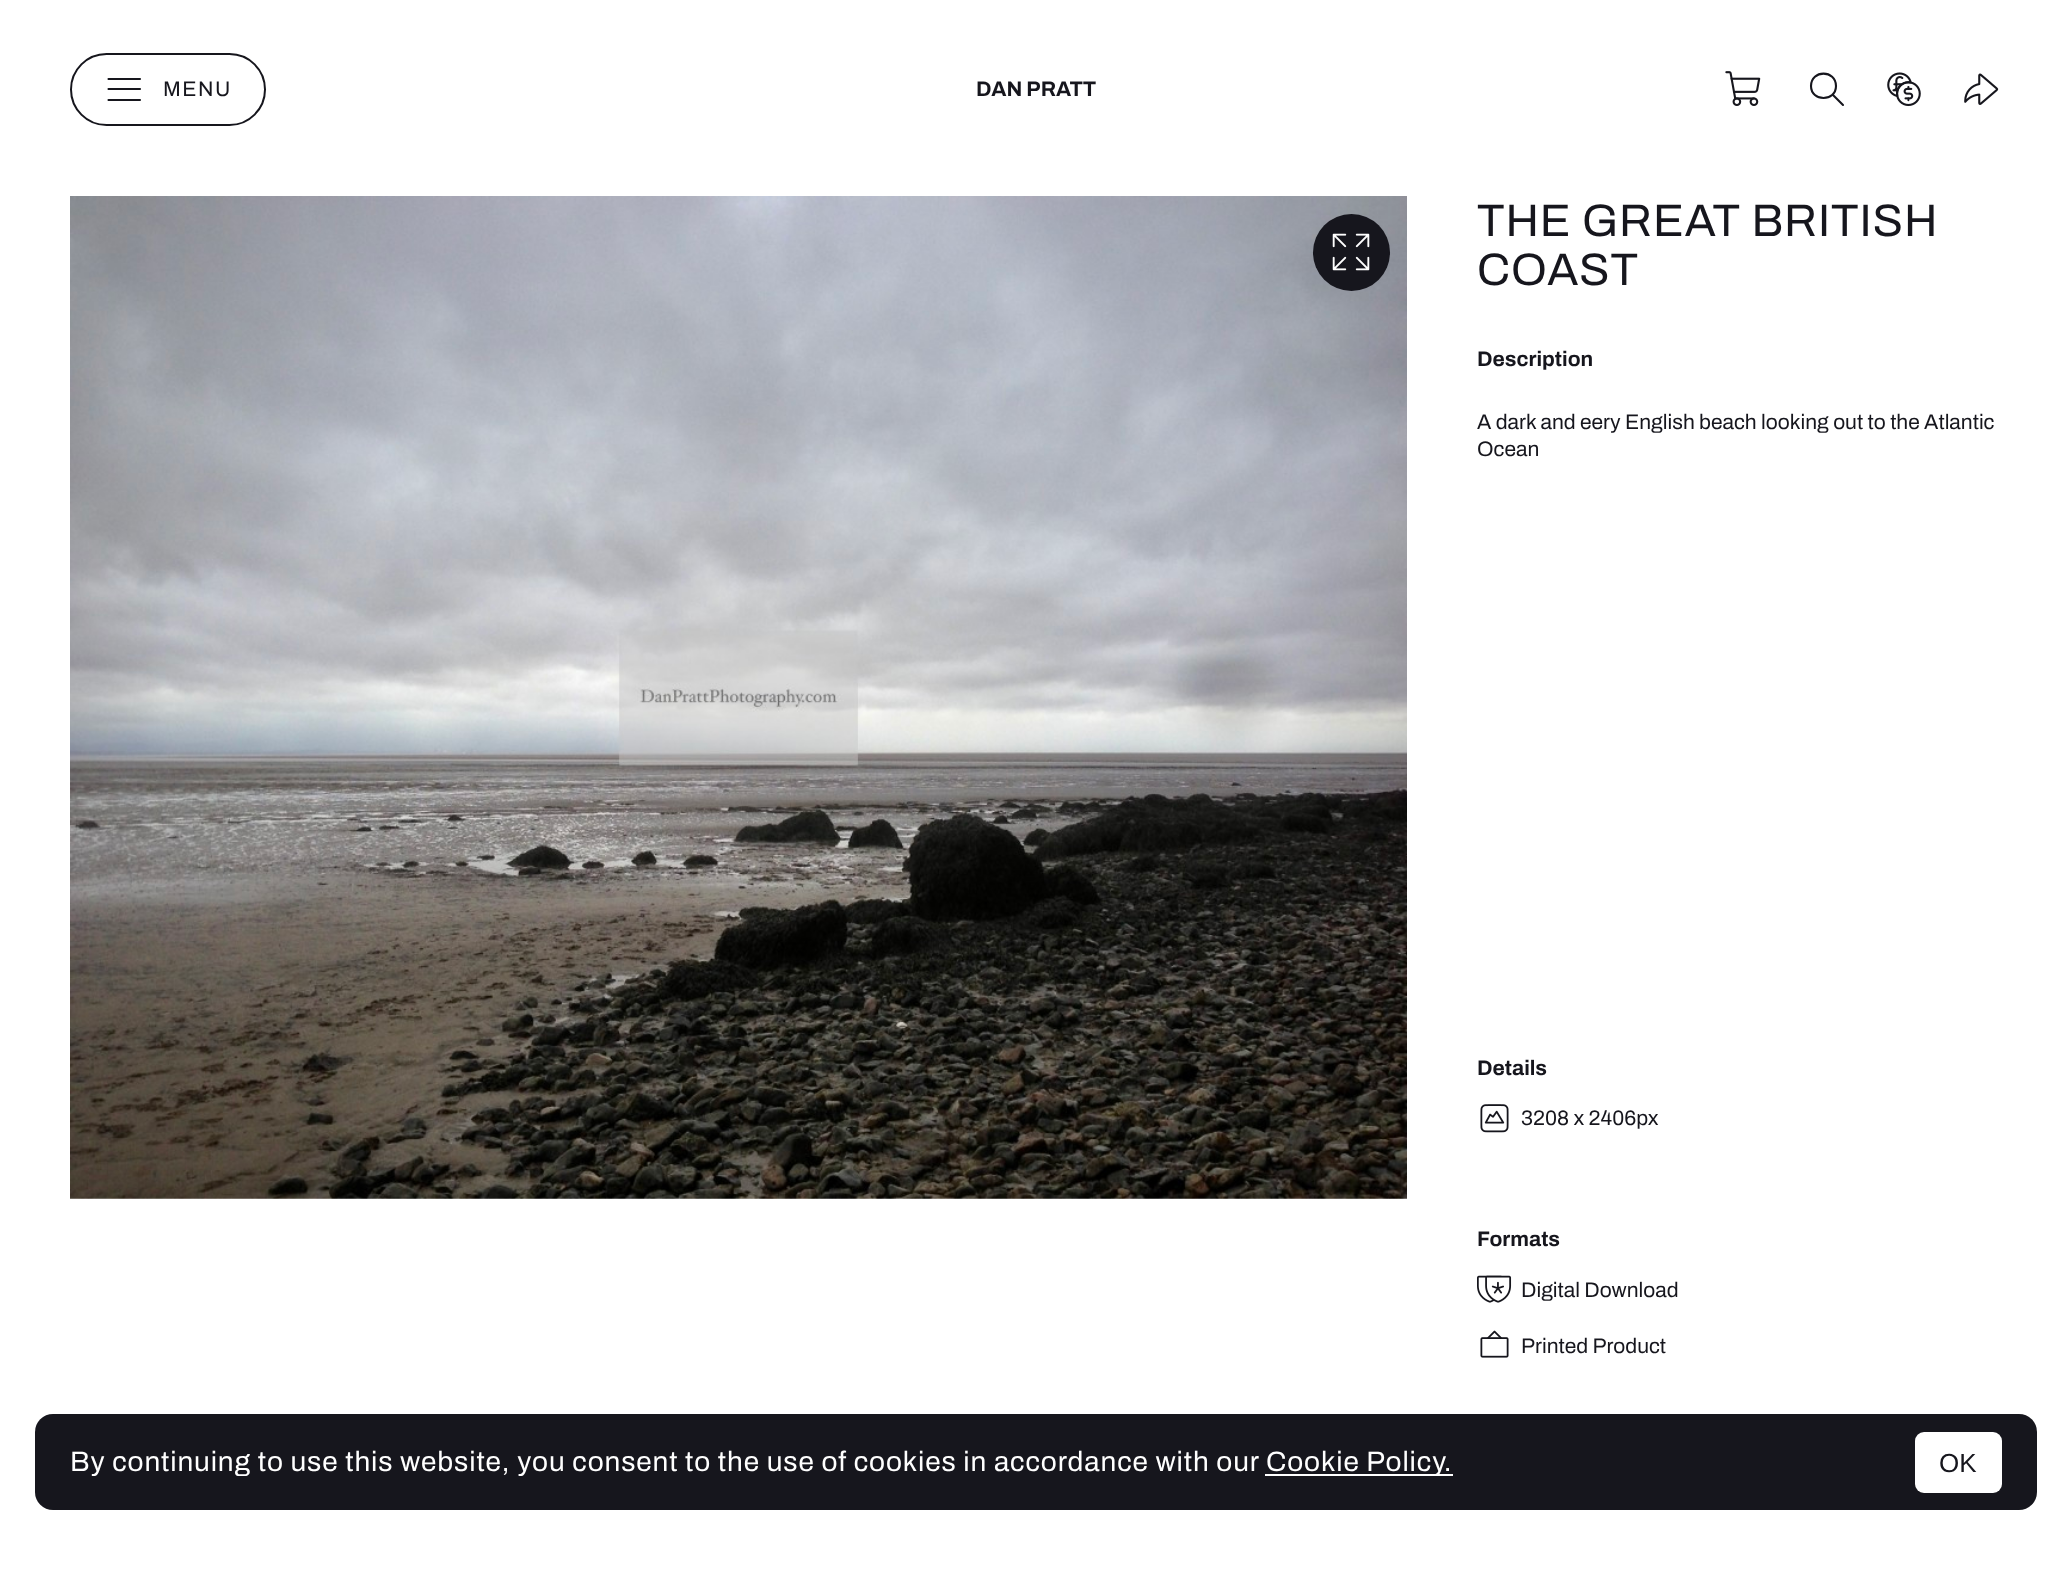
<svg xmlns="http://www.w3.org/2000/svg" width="2071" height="1571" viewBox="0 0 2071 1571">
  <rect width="100%" height="100%" fill="#fff"/>
  <rect x="71" y="54" width="194" height="71" rx="35.5" fill="none" stroke="#16161d" stroke-width="2"/>
  <path d="M108.5 89H140M108.5 79H140M108.5 100H140" fill="none" stroke="#16161d" stroke-width="2.1" stroke-linecap="round" stroke-linejoin="round"/>
  <image x="1725" y="71" width="36" height="35" href="img/1.png"/>
  <path d="M1843 105L1832.5 94.5M1836 86C1836 102 1811 102 1811 86C1811 69.5 1836 69.5 1836 86Z" fill="none" stroke="#16161d" stroke-width="2.1" stroke-linecap="round" stroke-linejoin="round"/>
  <image x="1887" y="72" width="34" height="35" href="img/2.png"/>
  <image x="1964" y="73" width="35" height="32" href="img/3.png"/>
  <image x="70" y="196" width="1337" height="1003" href="img/4.png"/>
  <circle cx="1351.5" cy="252.5" r="38.5" fill="#16161d"/>
  <image x="1332" y="233" width="38" height="38" href="img/5.png"/>
  <image x="1480" y="1104" width="29" height="29" href="img/6.png"/>
  <image x="1477" y="1275" width="35" height="28" href="img/7.png"/>
  <image x="1480" y="1330" width="29" height="28" href="img/8.png"/>
  <rect x="35" y="1414" width="2002" height="96" rx="18" fill="#16161d"/>
  <path d="M1265 1474h188v2H1265z" fill="#fff"/>
  <rect x="1915" y="1432" width="87" height="61" rx="9" fill="#fff"/>
  <text x="163" y="96" font-family="Archivo" font-size="21" letter-spacing="1.5" fill="#16161d">MENU</text>
  <text x="976" y="96" font-family="Archivo" font-size="21" font-weight="bold" fill="#16161d">DAN PRATT</text>
  <g font-family="Archivo" font-size="45.5" letter-spacing="0.88" fill="#16161d">
    <text x="1477" y="236">THE GREAT BRITISH</text>
    <text x="1477" y="285">COAST</text>
  </g>
  <text x="1477" y="366" font-family="Archivo" font-size="21" font-weight="bold" fill="#16161d">Description</text>
  <g font-family="Archivo" font-size="21" fill="#16161d">
    <text x="1477" y="429">A dark and eery English beach looking out to the Atlantic</text>
    <text x="1477" y="456">Ocean</text>
  </g>
  <text x="1477" y="1075" font-family="Archivo" font-size="21" font-weight="bold" fill="#16161d">Details</text>
  <text x="1521" y="1125" font-family="Archivo" font-size="21" fill="#16161d">3208 x 2406px</text>
  <text x="1477" y="1246" font-family="Archivo" font-size="21" font-weight="bold" fill="#16161d">Formats</text>
  <g font-family="Archivo" font-size="21" fill="#16161d">
    <text x="1521" y="1297">Digital Download</text>
    <text x="1521" y="1353">Printed Product</text>
  </g>
  <g font-family="Archivo" font-size="28" letter-spacing="0.88" fill="#fff">
    <text x="70" y="1471">By continuing to use this website, you consent to the use of cookies in accordance with our</text>
    <text x="1266" y="1471">Cookie Policy.</text>
  </g>
  <text x="1939" y="1472" font-family="Liberation Sans" font-size="26" fill="#16161d">OK</text>
</svg>
